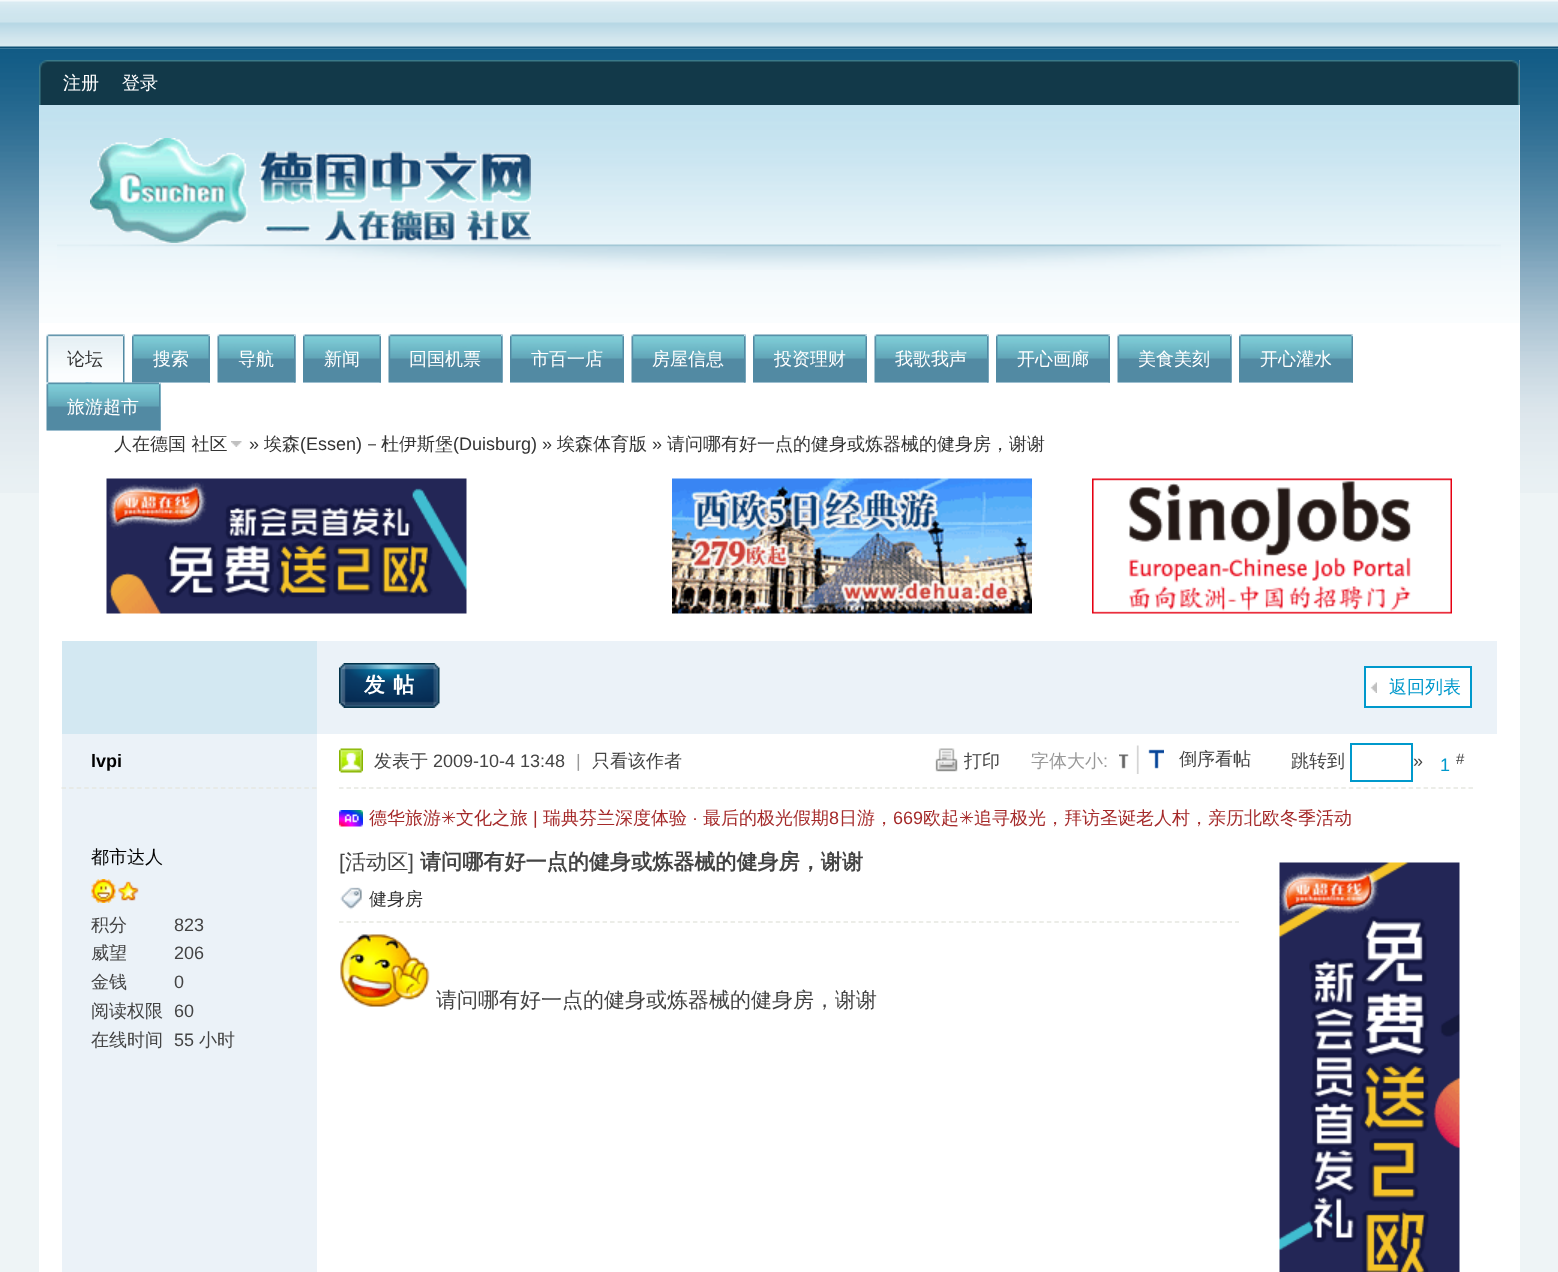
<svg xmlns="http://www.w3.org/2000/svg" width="1558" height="1272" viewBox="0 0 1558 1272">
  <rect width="100%" height="100%" fill="#eef4f6"/>
  <image x="0" y="48" width="1558" height="445" href="img/1.png"/>
  <image x="0" y="0" width="1558" height="48" href="img/2.png"/>
  <path d="M39 60h1481v1212H39z" fill="#fff"/>
  <image x="39" y="105" width="1481" height="218" href="img/3.png"/>
  <image x="57" y="244" width="1444" height="26" href="img/4.png"/>
  <image x="47" y="60" width="1473" height="45" href="img/5.png"/>
  <image x="39" y="60" width="8" height="45" href="img/6.png"/>
  <image x="1512" y="60" width="8" height="45" href="img/7.png"/>
  <image x="90" y="138" width="441" height="105" href="img/8.png"/>
  <image x="79" y="382" width="13" height="1" href="img/24.png"/>
  <image x="46" y="334" width="79" height="49" href="img/9.png"/>
  <path d="M132 382h78v1H132z" fill="#ebf4fd"/>
  <image x="132" y="334" width="78" height="49" href="img/11.png"/>
  <path d="M47 383h114v48H47z" fill="#ebf4fd"/>
  <image x="46" y="382" width="115" height="49" href="img/22.png"/>
  <image x="123" y="334" width="2" height="49" href="img/10.png"/>
  <image x="208" y="334" width="2" height="49" href="img/12.png"/>
  <path d="M218 335h78v48H218z" fill="#ebf4fd"/>
  <image x="217" y="334" width="79" height="49" href="img/13.png"/>
  <image x="294" y="334" width="2" height="49" href="img/14.png"/>
  <path d="M303 382h78v1H303z" fill="#ebf4fd"/>
  <image x="303" y="334" width="78" height="49" href="img/15.png"/>
  <image x="379" y="334" width="2" height="49" href="img/12.png"/>
  <path d="M389 335h114v48H389z" fill="#ebf4fd"/>
  <image x="388" y="334" width="115" height="49" href="img/16.png"/>
  <image x="501" y="334" width="2" height="49" href="img/17.png"/>
  <path d="M510 382h114v1H510z" fill="#ebf4fd"/>
  <image x="510" y="334" width="114" height="49" href="img/18.png"/>
  <image x="622" y="334" width="2" height="49" href="img/19.png"/>
  <path d="M632 335h114v48H632z" fill="#ebf4fd"/>
  <image x="631" y="334" width="115" height="49" href="img/16.png"/>
  <image x="744" y="334" width="2" height="49" href="img/17.png"/>
  <path d="M753 382h114v1H753z" fill="#ebf4fd"/>
  <image x="753" y="334" width="114" height="49" href="img/20.png"/>
  <image x="865" y="334" width="2" height="49" href="img/19.png"/>
  <path d="M875 335h114v48H875z" fill="#ebf4fd"/>
  <image x="874" y="334" width="115" height="49" href="img/21.png"/>
  <image x="987" y="334" width="2" height="49" href="img/17.png"/>
  <path d="M996 382h114v1H996z" fill="#ebf4fd"/>
  <image x="996" y="334" width="114" height="49" href="img/18.png"/>
  <image x="1108" y="334" width="2" height="49" href="img/19.png"/>
  <path d="M1118 335h114v48H1118z" fill="#ebf4fd"/>
  <image x="1117" y="334" width="115" height="49" href="img/16.png"/>
  <image x="1230" y="334" width="2" height="49" href="img/17.png"/>
  <path d="M1239 382h114v1H1239z" fill="#ebf4fd"/>
  <image x="1239" y="334" width="114" height="49" href="img/20.png"/>
  <image x="1351" y="334" width="2" height="49" href="img/19.png"/>
  <image x="159" y="382" width="2" height="49" href="img/23.png"/>
  <image x="231" y="441" width="11" height="6" href="img/25.png"/>
  <image x="106" y="478" width="361" height="136" href="img/26.png"/>
  <image x="672" y="478" width="360" height="136" href="img/27.png"/>
  <image x="1092" y="478" width="360" height="136" href="img/28.png"/>
  <path d="M317 641h1180v93H317z" fill="#ebf2f8"/>
  <path d="M62 641h255v93H62z" fill="#d3e8f2"/>
  <image x="339" y="663" width="101" height="45" href="img/29.png"/>
  <path d="M1366 668h104v38H1366z" fill="#fff"/>
  <image x="1370" y="682" width="7" height="11" href="img/30.png"/>
  <path d="M1365 667h106v40H1365z" fill="none" stroke="#09c" stroke-width="2"/>
  <path d="M62 734h255v538H62z" fill="#ebf2f8"/>
  <path d="M61.5 788H316.5" fill="none" stroke="#e6e7e1" stroke-width="1.5" stroke-dasharray="4.5 3.09"/>
  <image x="91" y="879" width="25" height="24" href="img/31.png"/>
  <image x="118" y="881" width="21" height="20" href="img/32.png"/>
  <path d="M339 788H1474.5" fill="none" stroke="#e6e7e1" stroke-width="1.5" stroke-dasharray="4.5 2.98"/>
  <image x="339" y="748" width="24" height="25" href="img/33.png"/>
  <image x="935" y="748" width="23" height="24" href="img/34.png"/>
  <image x="1119" y="745" width="20" height="29" href="img/35.png"/>
  <image x="1148" y="749" width="16" height="20" href="img/36.png"/>
  <path d="M1351 744h61v37H1351z" fill="none" stroke="#09c" stroke-width="2"/>
  <image x="339" y="810" width="24" height="17" href="img/37.png"/>
  <path d="M339 922H1239" fill="none" stroke="#e6e7e1" stroke-width="1.5" stroke-dasharray="4.5 3.03"/>
  <image x="340" y="887" width="22" height="23" href="img/38.png"/>
  <image x="340" y="934" width="90" height="73" href="img/39.png"/>
  <image x="1279" y="862" width="181" height="410" href="img/40.png"/>
  <g font-family="WenQuanYi Zen Hei" font-size="18" font-weight="500" fill="#fff">
    <text x="63" y="89">注册</text>
    <text x="122" y="89">登录</text>
  </g>
  <text x="67" y="365" font-family="WenQuanYi Zen Hei" font-size="18" font-weight="500" fill="#333">论坛</text>
  <g font-family="WenQuanYi Zen Hei" font-size="18" font-weight="500" fill="#fff">
    <text x="153" y="365">搜索</text>
    <text x="238" y="365">导航</text>
    <text x="324" y="365">新闻</text>
    <text x="409" y="365">回国机票</text>
    <text x="531" y="365">市百一店</text>
    <text x="652" y="365">房屋信息</text>
    <text x="774" y="365">投资理财</text>
    <text x="895" y="365">我歌我声</text>
    <text x="1017" y="365">开心画廊</text>
    <text x="1138" y="365">美食美刻</text>
    <text x="1260" y="365">开心灌水</text>
    <text x="67" y="413">旅游超市</text>
  </g>
  <text x="114" y="450" font-family="WenQuanYi Zen Hei" font-size="18" font-weight="500" fill="#333">人在德国 社区</text>
  <text x="249" y="450" font-family="Liberation Sans" font-size="18" fill="#333">»</text>
  <text x="264" y="450" font-family="WenQuanYi Zen Hei" font-size="18" font-weight="500" fill="#333">埃森</text>
  <text x="300" y="450" font-family="Liberation Sans" font-size="18" fill="#333">(Essen)</text>
  <text x="363" y="450" font-family="WenQuanYi Zen Hei" font-size="18" font-weight="500" fill="#333">－杜伊斯堡</text>
  <text x="453" y="450" font-family="Liberation Sans" font-size="18" fill="#333">(Duisburg) »</text>
  <text x="557" y="450" font-family="WenQuanYi Zen Hei" font-size="18" font-weight="500" fill="#333">埃森体育版</text>
  <text x="652" y="450" font-family="Liberation Sans" font-size="18" fill="#333">»</text>
  <text x="667" y="450" font-family="WenQuanYi Zen Hei" font-size="18" font-weight="500" fill="#333">请问哪有好一点的健身或炼器械的健身房，谢谢</text>
  <text x="364" y="692" font-family="WenQuanYi Zen Hei" font-size="21" font-weight="bold" letter-spacing="8" fill="#fff">发帖</text>
  <text x="1389" y="693" font-family="WenQuanYi Zen Hei" font-size="18" font-weight="500" fill="#09c">返回列表</text>
  <text x="91" y="767" font-family="Liberation Sans" font-size="18" font-weight="bold" fill="#000">lvpi</text>
  <text x="91" y="863" font-family="WenQuanYi Zen Hei" font-size="18" font-weight="500" fill="#000">都市达人</text>
  <text x="91" y="931" font-family="WenQuanYi Zen Hei" font-size="18" font-weight="500" fill="#444">积分</text>
  <text x="174" y="931" font-family="Liberation Sans" font-size="18" fill="#444">823</text>
  <text x="91" y="959" font-family="WenQuanYi Zen Hei" font-size="18" font-weight="500" fill="#444">威望</text>
  <text x="174" y="959" font-family="Liberation Sans" font-size="18" fill="#444">206</text>
  <text x="91" y="988" font-family="WenQuanYi Zen Hei" font-size="18" font-weight="500" fill="#444">金钱</text>
  <text x="174" y="988" font-family="Liberation Sans" font-size="18" fill="#444">0</text>
  <text x="91" y="1017" font-family="WenQuanYi Zen Hei" font-size="18" font-weight="500" fill="#444">阅读权限</text>
  <text x="174" y="1017" font-family="Liberation Sans" font-size="18" fill="#444">60</text>
  <text x="91" y="1046" font-family="WenQuanYi Zen Hei" font-size="18" font-weight="500" fill="#444">在线时间</text>
  <text x="174" y="1046" font-family="Liberation Sans" font-size="18" fill="#444">55</text>
  <g font-family="WenQuanYi Zen Hei" font-size="18" font-weight="500" fill="#444">
    <text x="199" y="1046">小时</text>
    <text x="374" y="767">发表于</text>
  </g>
  <text x="433" y="767" font-family="Liberation Sans" font-size="18" fill="#444">2009-10-4 13:48</text>
  <text x="576" y="767" font-family="Liberation Sans" font-size="18" fill="#999">|</text>
  <g font-family="WenQuanYi Zen Hei" font-size="18" font-weight="500" fill="#444">
    <text x="592" y="767">只看该作者</text>
    <text x="964" y="767">打印</text>
  </g>
  <text x="1031" y="767" font-family="WenQuanYi Zen Hei" font-size="18" font-weight="500" fill="#999">字体大小</text>
  <text x="1103" y="767" font-family="Liberation Sans" font-size="18" fill="#999">:</text>
  <g font-family="WenQuanYi Zen Hei" font-size="18" font-weight="500" fill="#444">
    <text x="1179" y="765">倒序看帖</text>
    <text x="1291" y="767">跳转到</text>
  </g>
  <text x="1413" y="767" font-family="Liberation Sans" font-size="18" fill="#444">»</text>
  <text x="1440" y="771" font-family="Liberation Sans" font-size="18" fill="#09c">1</text>
  <text x="1456" y="764" font-family="Liberation Sans" font-size="15" fill="#444">#</text>
  <text x="369" y="824" font-family="WenQuanYi Zen Hei" font-size="18" font-weight="500" fill="#a52a2a">德华旅游</text>
  <text x="441" y="824" font-family="DejaVu Sans" font-size="18" fill="#a52a2a">✳</text>
  <text x="456" y="824" font-family="WenQuanYi Zen Hei" font-size="18" font-weight="500" fill="#a52a2a">文化之旅</text>
  <text x="533" y="824" font-family="Liberation Sans" font-size="18" fill="#a52a2a">|</text>
  <text x="543" y="824" font-family="WenQuanYi Zen Hei" font-size="18" font-weight="500" fill="#a52a2a">瑞典芬兰深度体验</text>
  <text x="692" y="824" font-family="Liberation Sans" font-size="18" fill="#a52a2a">·</text>
  <text x="703" y="824" font-family="WenQuanYi Zen Hei" font-size="18" font-weight="500" fill="#a52a2a">最后的极光假期</text>
  <text x="829" y="824" font-family="Liberation Sans" font-size="18" fill="#a52a2a">8</text>
  <text x="839" y="824" font-family="WenQuanYi Zen Hei" font-size="18" font-weight="500" fill="#a52a2a">日游，</text>
  <text x="893" y="824" font-family="Liberation Sans" font-size="18" fill="#a52a2a">669</text>
  <text x="923" y="824" font-family="WenQuanYi Zen Hei" font-size="18" font-weight="500" fill="#a52a2a">欧起</text>
  <text x="959" y="824" font-family="DejaVu Sans" font-size="18" fill="#a52a2a">✳</text>
  <text x="974" y="824" font-family="WenQuanYi Zen Hei" font-size="18" font-weight="500" fill="#a52a2a">追寻极光，拜访圣诞老人村，亲历北欧冬季活动</text>
  <text x="339" y="869" font-family="Liberation Sans" font-size="21.1" fill="#444">[</text>
  <text x="345" y="869" font-family="WenQuanYi Zen Hei" font-size="21.1" font-weight="500" fill="#444">活动区</text>
  <text x="408" y="869" font-family="Liberation Sans" font-size="21.1" fill="#444">]</text>
  <text x="420" y="869" font-family="WenQuanYi Zen Hei" font-size="21.1" font-weight="bold" fill="#444">请问哪有好一点的健身或炼器械的健身房，谢谢</text>
  <text x="369" y="905" font-family="WenQuanYi Zen Hei" font-size="18" font-weight="500" fill="#333">健身房</text>
  <text x="436" y="1007" font-family="WenQuanYi Zen Hei" font-size="21" font-weight="500" fill="#444">请问哪有好一点的健身或炼器械的健身房，谢谢</text>
</svg>
